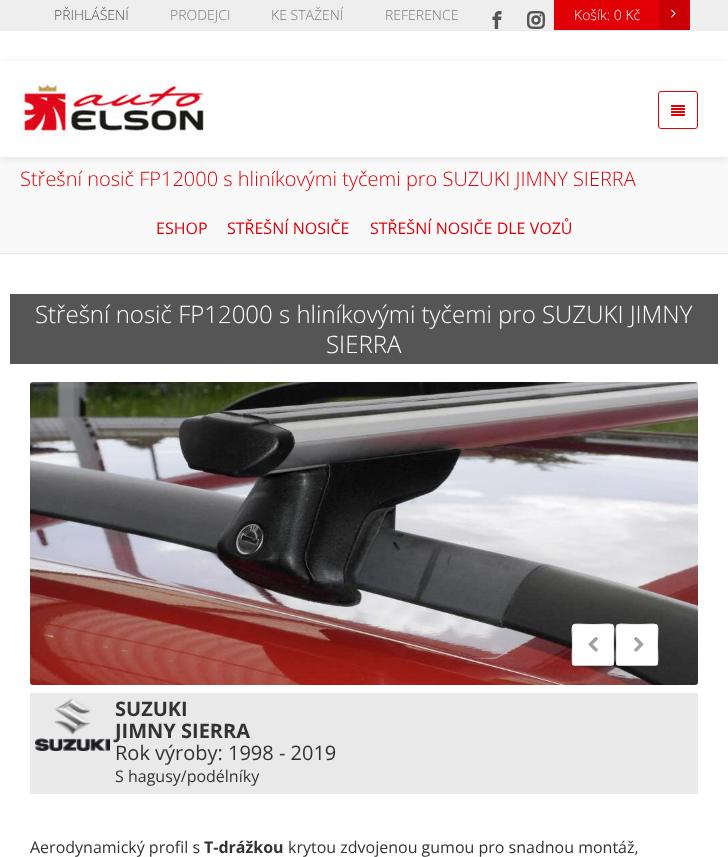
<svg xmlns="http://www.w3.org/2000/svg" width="728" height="857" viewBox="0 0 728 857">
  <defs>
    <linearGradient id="g1" gradientUnits="userSpaceOnUse" x1="622" y1="0" x2="622" y2="30"><stop offset="0" stop-color="#e20006"/><stop offset="1" stop-color="#e20008"/></linearGradient>
  </defs>
  <rect width="100%" height="100%" fill="#fff"/>
  <path d="M0 0h728v31H0z" fill="#eee"/>
  <path d="M37 30h654v1H37z" fill="#ebebeb"/>
  <image x="492" y="11" width="10" height="18" href="img/1.png"/>
  <image x="527" y="11" width="18" height="18" href="img/2.png"/>
  <path d="M554 0h136v30H554z" fill="url(#g1)"/>
  <path d="M659 0h30v30H659z" fill="#cb0006"/>
  <image x="671" y="9" width="5" height="9" href="img/3.png"/>
  <path d="M0 157h728v96H0z" fill="#f9f9f9"/>
  <path d="M0 63h728v95H0z" fill="#0000001a" filter="blur(5px)"/>
  <path d="M0 61h728v96H0z" fill="#fff"/>
  <image x="20" y="81" width="184" height="55" href="img/4.png"/>
  <rect x="658.5" y="91.5" width="39" height="37" rx="2.5" fill="none" stroke="#e20006"/>
  <image x="671" y="105" width="14" height="11" href="img/5.png"/>
  <path d="M0 253h728v1H0z" fill="#ebebeb"/>
  <path d="M10 294h708v70H10z" fill="#555"/>
  <image x="30" y="382" width="668" height="303" href="img/6.png"/>
  <path d="M572 663C572 668 577 667 581 667H605C609 667 614 668 614 663C614 665 613 666 611 666H575C573 666 572 665 572 663Z" fill="#00000012"/>
  <path d="M572 663C572 670 574 669 581 669H605C612 669 614 670 614 663C614 665 613 666 611 666H575C573 666 572 665 572 663Z" fill="#00000008"/>
  <rect x="572" y="624" width="42" height="42" rx="3" fill="#fff"/>
  <path d="M613 665L611 665.5H575L573 665" fill="none" stroke="#00000038"/>
  <path d="M573 665C571.5 663 572.5 648 572.5 645C572.5 619.5 567.5 624.5 593 624.5C618.5 624.5 613.5 619.5 613.5 645C613.5 648 614.5 663 613 665" fill="none" stroke="#e5e5e5"/>
  <image x="588" y="637" width="10" height="15" href="img/7.png"/>
  <path d="M616 663C616 668 621 667 625 667H649C653 667 658 668 658 663C658 665 657 666 655 666H619C617 666 616 665 616 663Z" fill="#00000012"/>
  <path d="M616 663C616 670 618 669 625 669H649C656 669 658 670 658 663C658 665 657 666 655 666H619C617 666 616 665 616 663Z" fill="#00000008"/>
  <rect x="616" y="624" width="42" height="42" rx="3" fill="#fff"/>
  <path d="M657 665L655 665.5H619L617 665" fill="none" stroke="#00000038"/>
  <path d="M617 665C615.5 663 616.5 648 616.5 645C616.5 619.5 611.5 624.5 637 624.5C662.5 624.5 657.5 619.5 657.5 645C657.5 648 658.5 663 657 665" fill="none" stroke="#e5e5e5"/>
  <image x="634" y="637" width="10" height="15" href="img/8.png"/>
  <path d="M30 693h668v101H30z" fill="#e9e9e9"/>
  <image x="35" y="698" width="75" height="53" href="img/9.png"/>
  <text x="54" y="20" font-family="Open Sans" font-size="14" font-weight="300" fill="#555">PŘIHLÁŠENÍ</text>
  <g font-family="Open Sans" font-size="14" font-weight="300" fill="#7c7c7c">
    <text x="170" y="20">PRODEJCI</text>
    <text x="271" y="20">KE STAŽENÍ</text>
    <text x="385" y="20">REFERENCE</text>
  </g>
  <text x="574" y="20" font-family="Open Sans" font-size="14" font-weight="300" fill="#fff">Košík: 0 Kč</text>
  <text x="20" y="186" font-family="Open Sans" font-size="20" font-weight="300" fill="#e20008">Střešní nosič FP12000 s hliníkovými tyčemi pro SUZUKI JIMNY SIERRA</text>
  <g font-family="Open Sans" font-size="16" fill="#e20008">
    <text x="156" y="234">ESHOP</text>
    <text x="227" y="234">STŘEŠNÍ NOSIČE</text>
    <text x="370" y="234">STŘEŠNÍ NOSIČE DLE VOZŮ</text>
  </g>
  <g font-family="Open Sans" font-size="24" font-weight="300" fill="#fff">
    <text x="35" y="323">Střešní nosič FP12000 s hliníkovými tyčemi pro SUZUKI JIMNY</text>
    <text x="326" y="353">SIERRA</text>
  </g>
  <g font-family="Open Sans" font-size="20" font-weight="bold" fill="#333">
    <text x="115" y="716">SUZUKI</text>
    <text x="115" y="738">JIMNY SIERRA</text>
  </g>
  <text x="115" y="760" font-family="Open Sans" font-size="20" fill="#333">Rok výroby: 1998 - 2019</text>
  <g font-family="Open Sans" font-size="16" fill="#333">
    <text x="115" y="782">S hagusy/podélníky</text>
    <text x="30" y="853">Aerodynamický profil s</text>
  </g>
  <text x="204" y="853" font-family="Open Sans" font-size="16" font-weight="bold" fill="#333">T-drážkou</text>
  <text x="288" y="853" font-family="Open Sans" font-size="16" fill="#333">krytou zdvojenou gumou pro snadnou montáž,</text>
</svg>
